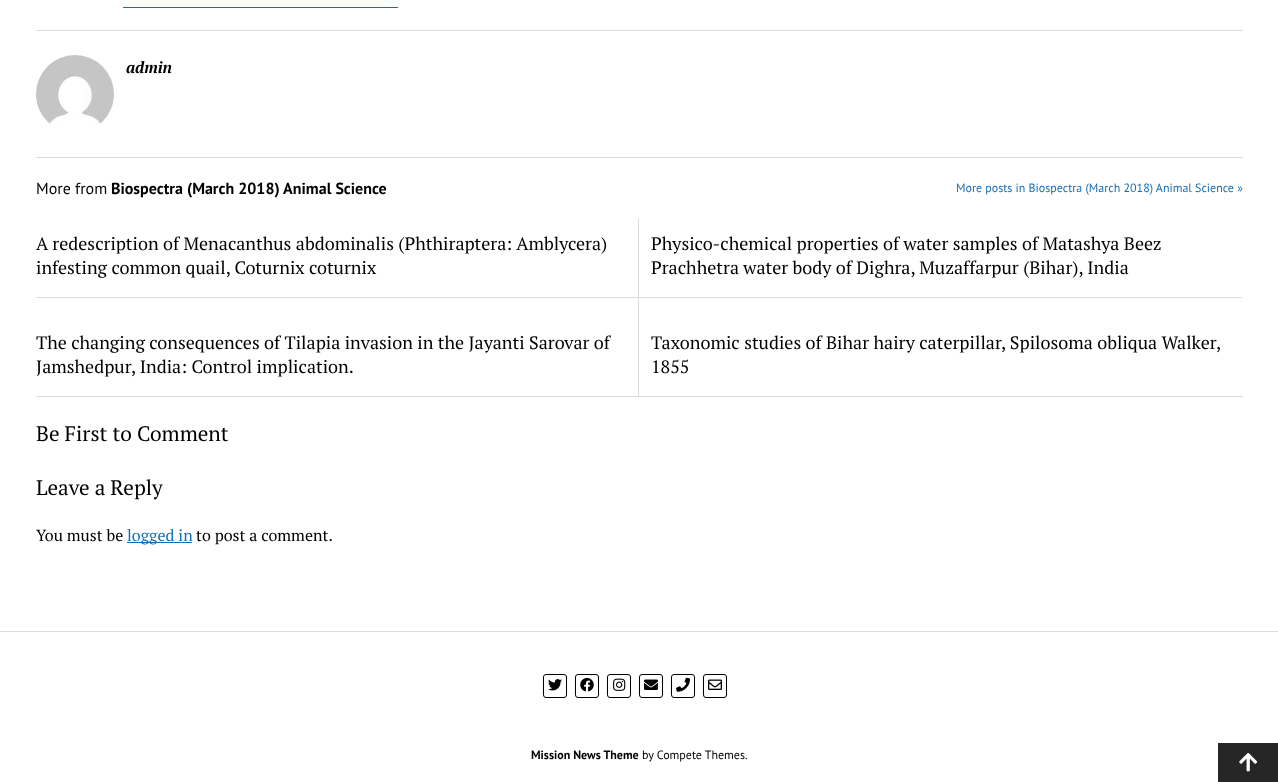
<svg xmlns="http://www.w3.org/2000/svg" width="1278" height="782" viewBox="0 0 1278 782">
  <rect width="100%" height="100%" fill="#fff"/>
  <path d="M36 157h1207v1H36z" fill="#dcdcdc"/>
  <path d="M123 7h275v1H123z" fill="#176db3"/>
  <path d="M36 30h1207v1H36z" fill="#dcdcdc"/>
  <image x="36" y="55" width="78" height="72" href="img/1.png"/>
  <path d="M36 396h1207v1H36z" fill="#dcdcdc"/>
  <path d="M638 218h1v79H638z" fill="#dcdcdc"/>
  <path d="M36 297h603v1H36z" fill="#dcdcdc"/>
  <path d="M638 297h1v99H638z" fill="#dcdcdc"/>
  <path d="M638 297h604v1H638z" fill="#dcdcdc"/>
  <path d="M127 542h65v1H127z" fill="#176db3"/>
  <path d="M0 631h1278v1H0z" fill="#dcdcdc"/>
  <rect x="543.5" y="674.5" width="23" height="23" rx="2.5" fill="none" stroke="#000"/>
  <image x="548" y="679" width="14" height="12" href="img/2.png"/>
  <rect x="575.5" y="674.5" width="23" height="23" rx="2.5" fill="none" stroke="#000"/>
  <image x="580" y="678" width="14" height="14" href="img/3.png"/>
  <rect x="607.5" y="674.5" width="23" height="23" rx="2.5" fill="none" stroke="#000"/>
  <image x="613" y="678" width="13" height="13" href="img/4.png"/>
  <rect x="639.5" y="674.5" width="23" height="23" rx="2.5" fill="none" stroke="#000"/>
  <image x="644" y="679" width="14" height="11" href="img/5.png"/>
  <rect x="671.5" y="674.5" width="23" height="23" rx="2.5" fill="none" stroke="#000"/>
  <image x="676" y="677" width="14" height="15" href="img/6.png"/>
  <rect x="703.5" y="674.5" width="23" height="23" rx="2.5" fill="none" stroke="#000"/>
  <image x="708" y="679" width="14" height="11" href="img/7.png"/>
  <path d="M1218 743h60v39H1218z" fill="#262626"/>
  <image x="1239" y="753" width="19" height="19" href="img/8.png"/>
  <text x="126" y="73" font-family="PT Serif" font-size="16" font-weight="bold" font-style="italic" fill="#000">admin</text>
  <text x="36" y="194" font-family="PT Sans" font-size="16" fill="#000">More from</text>
  <text x="111" y="194" font-family="PT Sans" font-size="16" font-weight="bold" fill="#000">Biospectra (March 2018) Animal Science</text>
  <text x="956" y="192" font-family="PT Sans" font-size="12" fill="#176db3">More posts in Biospectra (March 2018) Animal Science »</text>
  <g font-family="PT Serif" font-size="18" fill="#000">
    <text x="36" y="250">A redescription of Menacanthus abdominalis (Phthiraptera: Amblycera)</text>
    <text x="36" y="274">infesting common quail, Coturnix coturnix</text>
    <text x="651" y="250">Physico-chemical properties of water samples of Matashya Beez</text>
    <text x="651" y="274">Prachhetra water body of Dighra, Muzaffarpur (Bihar), India</text>
    <text x="36" y="349">The changing consequences of Tilapia invasion in the Jayanti Sarovar of</text>
    <text x="36" y="373">Jamshedpur, India: Control implication.</text>
    <text x="651" y="349">Taxonomic studies of Bihar hairy caterpillar, Spilosoma obliqua Walker,</text>
    <text x="651" y="373">1855</text>
  </g>
  <g font-family="PT Serif" font-size="21" fill="#000">
    <text x="36" y="441">Be First to Comment</text>
    <text x="36" y="495">Leave a Reply</text>
  </g>
  <text x="36" y="541" font-family="PT Serif" font-size="16" fill="#000">You must be</text>
  <text x="127" y="541" font-family="PT Serif" font-size="16" fill="#176db3">logged in</text>
  <text x="196" y="541" font-family="PT Serif" font-size="16" fill="#000">to post a comment.</text>
  <text x="531" y="759" font-family="PT Sans" font-size="12" font-weight="bold" fill="#000">Mission News Theme</text>
  <text x="642" y="759" font-family="PT Sans" font-size="12" fill="#000">by Compete Themes.</text>
</svg>
